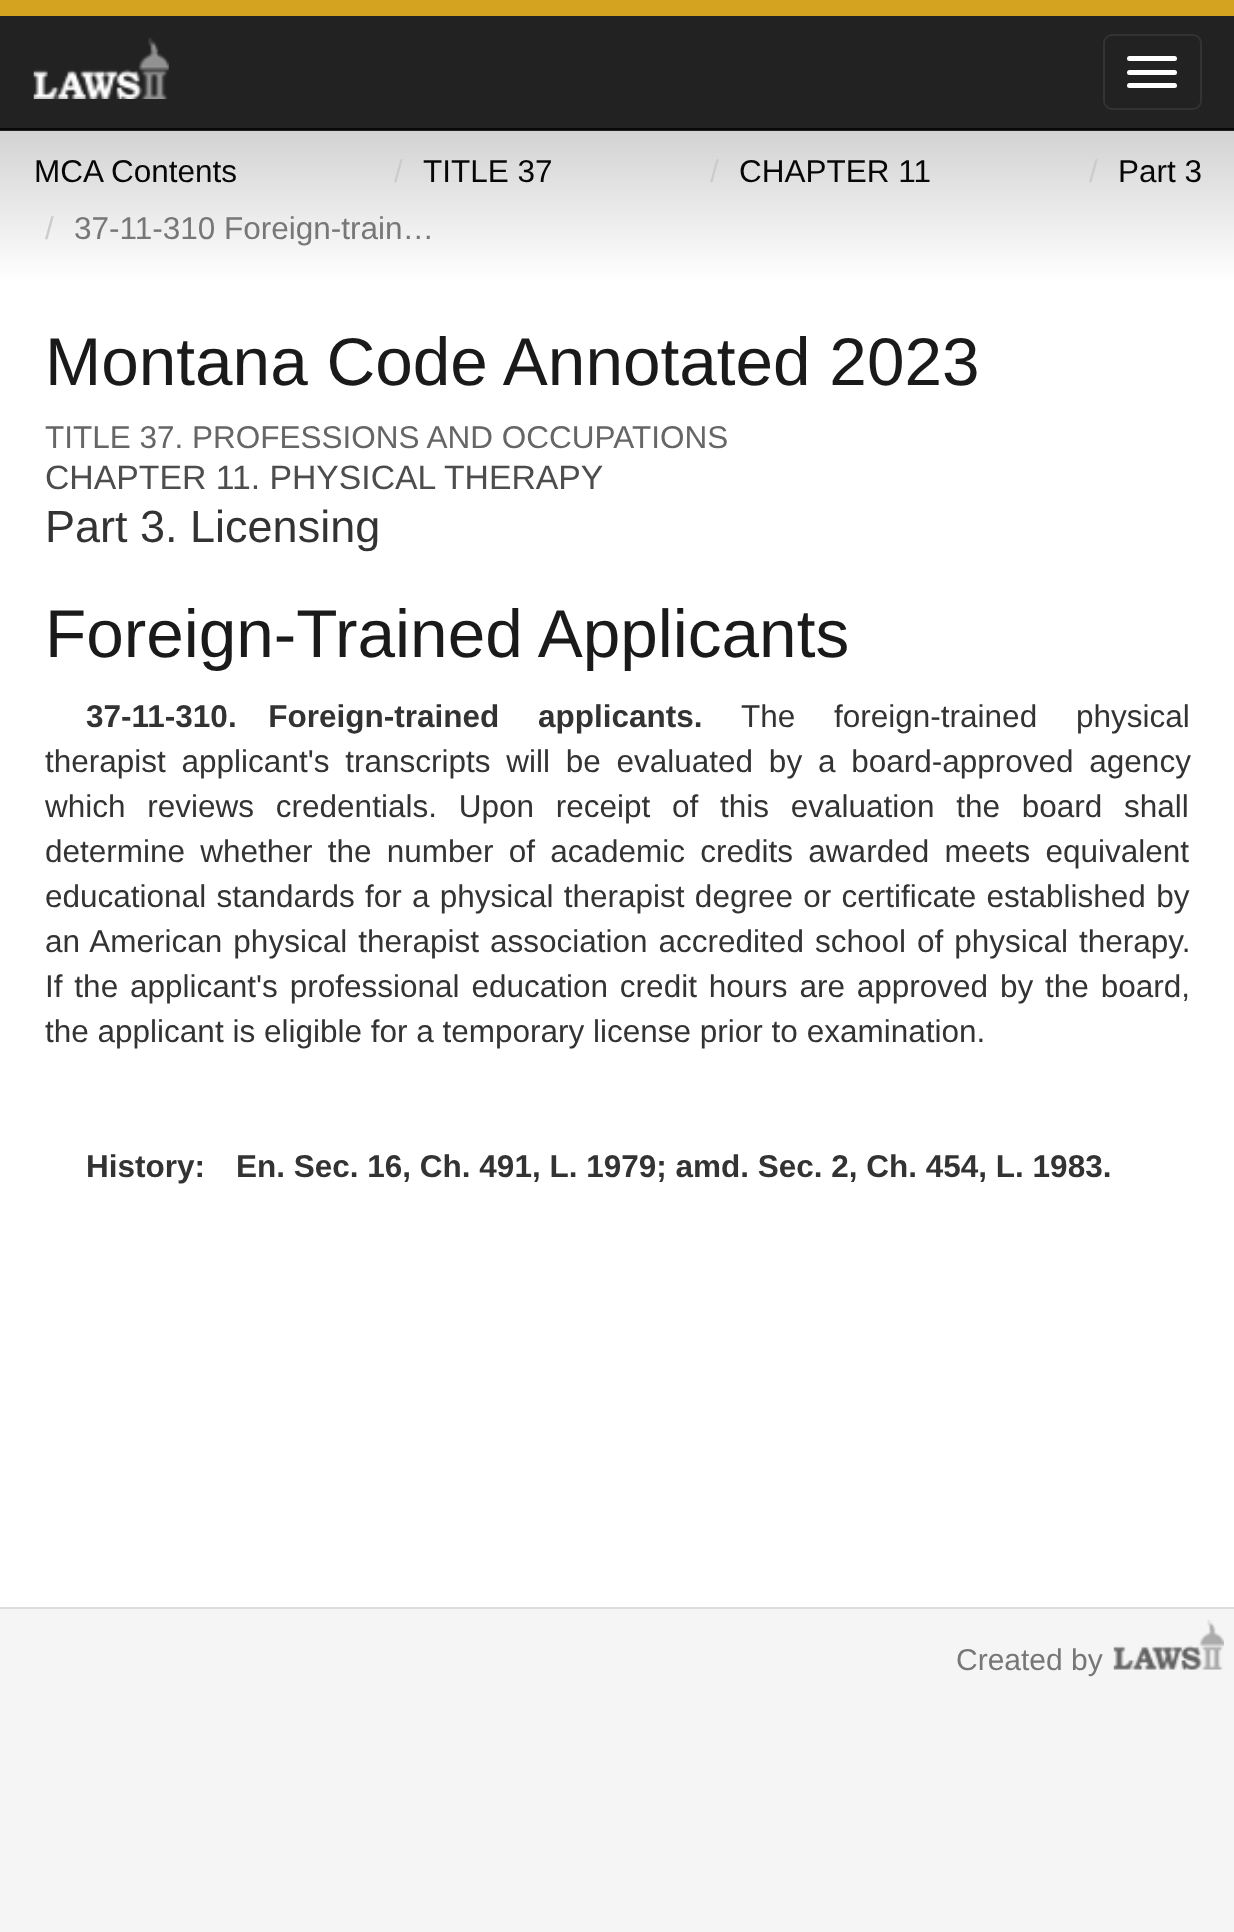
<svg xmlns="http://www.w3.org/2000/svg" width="1234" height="1932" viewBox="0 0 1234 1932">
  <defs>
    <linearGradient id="g1" gradientUnits="userSpaceOnUse" x1="618" y1="130" x2="618" y2="279"><stop offset="0" stop-color="#d2d2d2"/><stop offset="1" stop-color="#fefefe"/></linearGradient>
  </defs>
  <rect width="100%" height="100%" fill="#f5f5f5"/>
  <path d="M0 279h1234v1328H0z" fill="#fff"/>
  <path d="M0 16h1234v115H0z" fill="#222"/>
  <path d="M0 0h1234v16H0z" fill="#d4a320"/>
  <path d="M0 128h1234v2H0z" fill="#080808"/>
  <image x="33" y="38" width="136" height="61" href="img/1.png"/>
  <rect x="1104" y="35" width="97" height="74" rx="8" fill="none" stroke="#333" stroke-width="2"/>
  <rect x="1127" y="56" width="50" height="5" rx="2.5" fill="#fff"/>
  <rect x="1127" y="70" width="50" height="5" rx="2.5" fill="#fff"/>
  <rect x="1127" y="83" width="50" height="5" rx="2.5" fill="#fff"/>
  <path d="M0 131h1234v148H0z" fill="url(#g1)"/>
  <path d="M0 1607h1234v2H0z" fill="#ddd"/>
  <image x="1113" y="1620" width="111" height="50" href="img/2.png"/>
  <text x="34" y="182" font-family="Liberation Sans" font-size="31.5" fill="#070707">MCA Contents</text>
  <text x="394" y="182" font-family="Liberation Sans" font-size="31.5" fill="#ccc">/</text>
  <text x="423" y="182" font-family="Liberation Sans" font-size="31.5" fill="#070707">TITLE 37</text>
  <text x="710" y="182" font-family="Liberation Sans" font-size="31.5" fill="#ccc">/</text>
  <text x="739" y="182" font-family="Liberation Sans" font-size="31.5" fill="#070707">CHAPTER 11</text>
  <text x="1089" y="182" font-family="Liberation Sans" font-size="31.5" fill="#ccc">/</text>
  <text x="1118" y="182" font-family="Liberation Sans" font-size="31.5" fill="#070707">Part 3</text>
  <text x="45" y="239" font-family="Liberation Sans" font-size="31.5" fill="#ccc">/</text>
  <text x="74" y="239" font-family="Liberation Sans" font-size="31.5" fill="#777">37-11-310 Foreign-train…</text>
  <text x="45" y="385" font-family="Liberation Sans" font-size="67.5" fill="#1a1a1a">Montana Code Annotated 2023</text>
  <text x="45" y="448" font-family="Liberation Sans" font-size="31.5" fill="#666">TITLE 37. PROFESSIONS AND OCCUPATIONS</text>
  <text x="45" y="489" font-family="Liberation Sans" font-size="33.75" fill="#4d4d4d">CHAPTER 11. PHYSICAL THERAPY</text>
  <text x="45" y="542" font-family="Liberation Sans" font-size="45" fill="#333">Part 3. Licensing</text>
  <text x="45" y="657" font-family="Liberation Sans" font-size="67.5" fill="#1a1a1a">Foreign-Trained Applicants</text>
  <g font-family="Liberation Sans" font-size="31.5" font-weight="bold" fill="#333">
    <text x="86" y="727">37-11-310</text>
    <text x="228" y="727" word-spacing="30">. Foreign-trained applicants.</text>
  </g>
  <g font-family="Liberation Sans" font-size="31.5" fill="#333">
    <text x="741" y="727" word-spacing="30">The foreign-trained physical</text>
    <text x="45" y="772" word-spacing="7">therapist applicant's transcripts will be evaluated by a board-approved agency</text>
    <text x="45" y="817" word-spacing="13">which reviews credentials. Upon receipt of this evaluation the board shall</text>
    <text x="45" y="862" word-spacing="6.5">determine whether the number of academic credits awarded meets equivalent</text>
    <text x="45" y="907" word-spacing="1.5">educational standards for a physical therapist degree or certificate established by</text>
    <text x="45" y="952" word-spacing="2.25">an American physical therapist association accredited school of physical therapy.</text>
    <text x="45" y="997" word-spacing="3.1">If the applicant's professional education credit hours are approved by the board,</text>
    <text x="45" y="1042">the applicant is eligible for a temporary license prior to examination.</text>
  </g>
  <g font-family="Liberation Sans" font-size="31.5" font-weight="bold" fill="#333">
    <text x="86" y="1177">History:</text>
    <text x="236" y="1177">En. Sec. 16, Ch. 491, L. 1979; amd. Sec. 2, Ch. 454, L. 1983.</text>
  </g>
  <text x="956" y="1670" font-family="Liberation Sans" font-size="30" fill="#777">Created by</text>
</svg>
